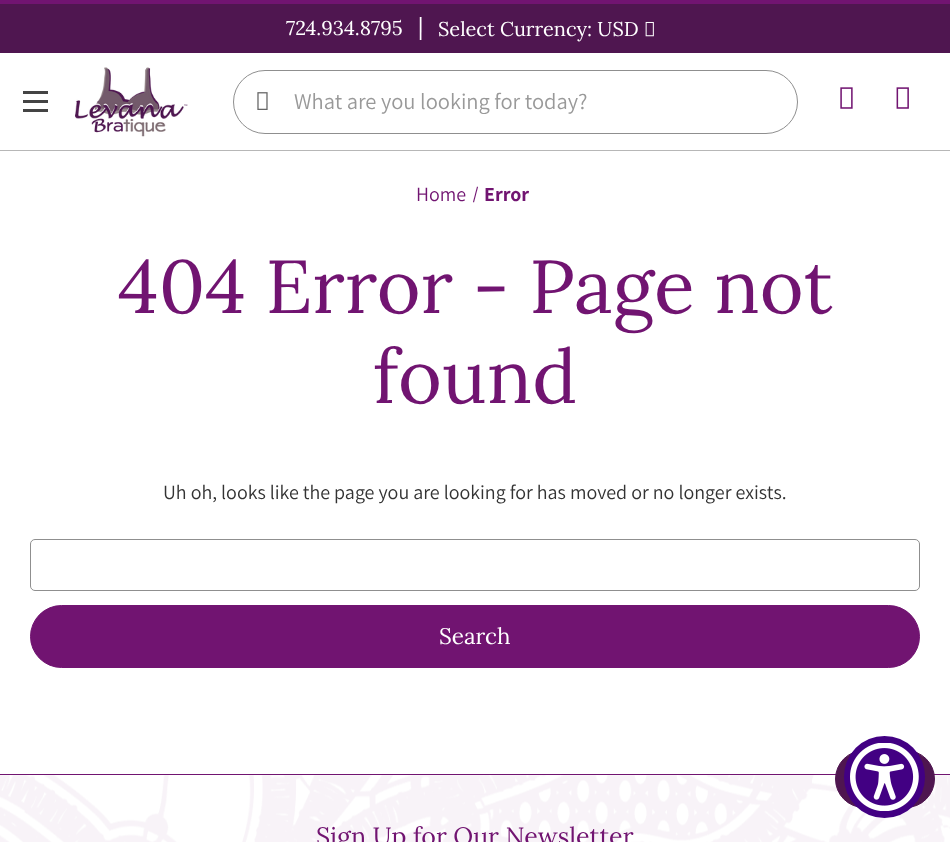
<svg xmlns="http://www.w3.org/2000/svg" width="950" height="842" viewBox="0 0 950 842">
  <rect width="100%" height="100%" fill="#fff"/>
  <path d="M0 0h950v4H0z" fill="#711471"/>
  <path d="M0 4h950v49H0z" fill="#4f1650"/>
  <image x="645" y="21" width="9" height="16" href="img/1.png"/>
  <path d="M0 150h950v1H0z" fill="#b7b7b7"/>
  <path d="M23 100h25v3H23z" fill="#444"/>
  <path d="M23 91h25v3H23z" fill="#444"/>
  <path d="M23 109h25v3H23z" fill="#444"/>
  <image x="75" y="67" width="113" height="70" href="img/2.png"/>
  <rect x="233.5" y="70.5" width="564" height="63" rx="31.5" fill="none" stroke="#8f8f8f"/>
  <image x="257" y="92" width="11" height="18" href="img/3.png"/>
  <image x="840" y="87" width="13" height="22" href="img/4.png"/>
  <image x="896" y="87" width="13" height="22" href="img/5.png"/>
  <path d="M477 186.5L478 187L474 202.5L473 202Z" fill="#711471"/>
  <rect x="30.5" y="539.5" width="889" height="51" rx="4.5" fill="none" stroke="#8f8f8f"/>
  <rect x="30.5" y="605.5" width="889" height="62" rx="31" fill="#711471" stroke="#711471"/>
  <image x="0" y="775" width="950" height="67" href="img/6.png"/>
  <path d="M0 774h950v1H0z" fill="#711471"/>
  <rect x="835.5" y="750.5" width="99" height="57" rx="28.5" fill="#4f1650" stroke="#4f1650"/>
  <rect x="844" y="736" width="81" height="82" rx="40.5" fill="#420083"/>
  <image x="850" y="743" width="69" height="68" href="img/7.png"/>
  <text x="286" y="35" font-family="Lora" font-size="20" fill="#fff">724.934.8795</text>
  <text x="418" y="34" font-family="Lora" font-size="22.5" fill="#fff">|</text>
  <text x="438" y="36" font-family="Lora" font-size="20" fill="#fff">Select Currency: USD</text>
  <text x="294" y="109" font-family="Assistant" font-size="22.5" fill="#999">What are you looking for today?</text>
  <text x="416" y="201" font-family="Assistant" font-size="20" fill="#711471">Home</text>
  <text x="484" y="201" font-family="Assistant" font-size="20" font-weight="bold" fill="#711471">Error</text>
  <g font-family="Lora" font-size="75" fill="#711471">
    <text x="118" y="313">404 Error - Page not</text>
    <text x="373" y="403">found</text>
  </g>
  <text x="163" y="499" font-family="Assistant" font-size="20" fill="#333">Uh oh, looks like the page you are looking for has moved or no longer exists.</text>
  <text x="439" y="644" font-family="Lora" font-size="22.5" fill="#fff">Search</text>
  <text x="316" y="845" font-family="Lora" font-size="25" fill="#711471">Sign Up for Our Newsletter</text>
</svg>
